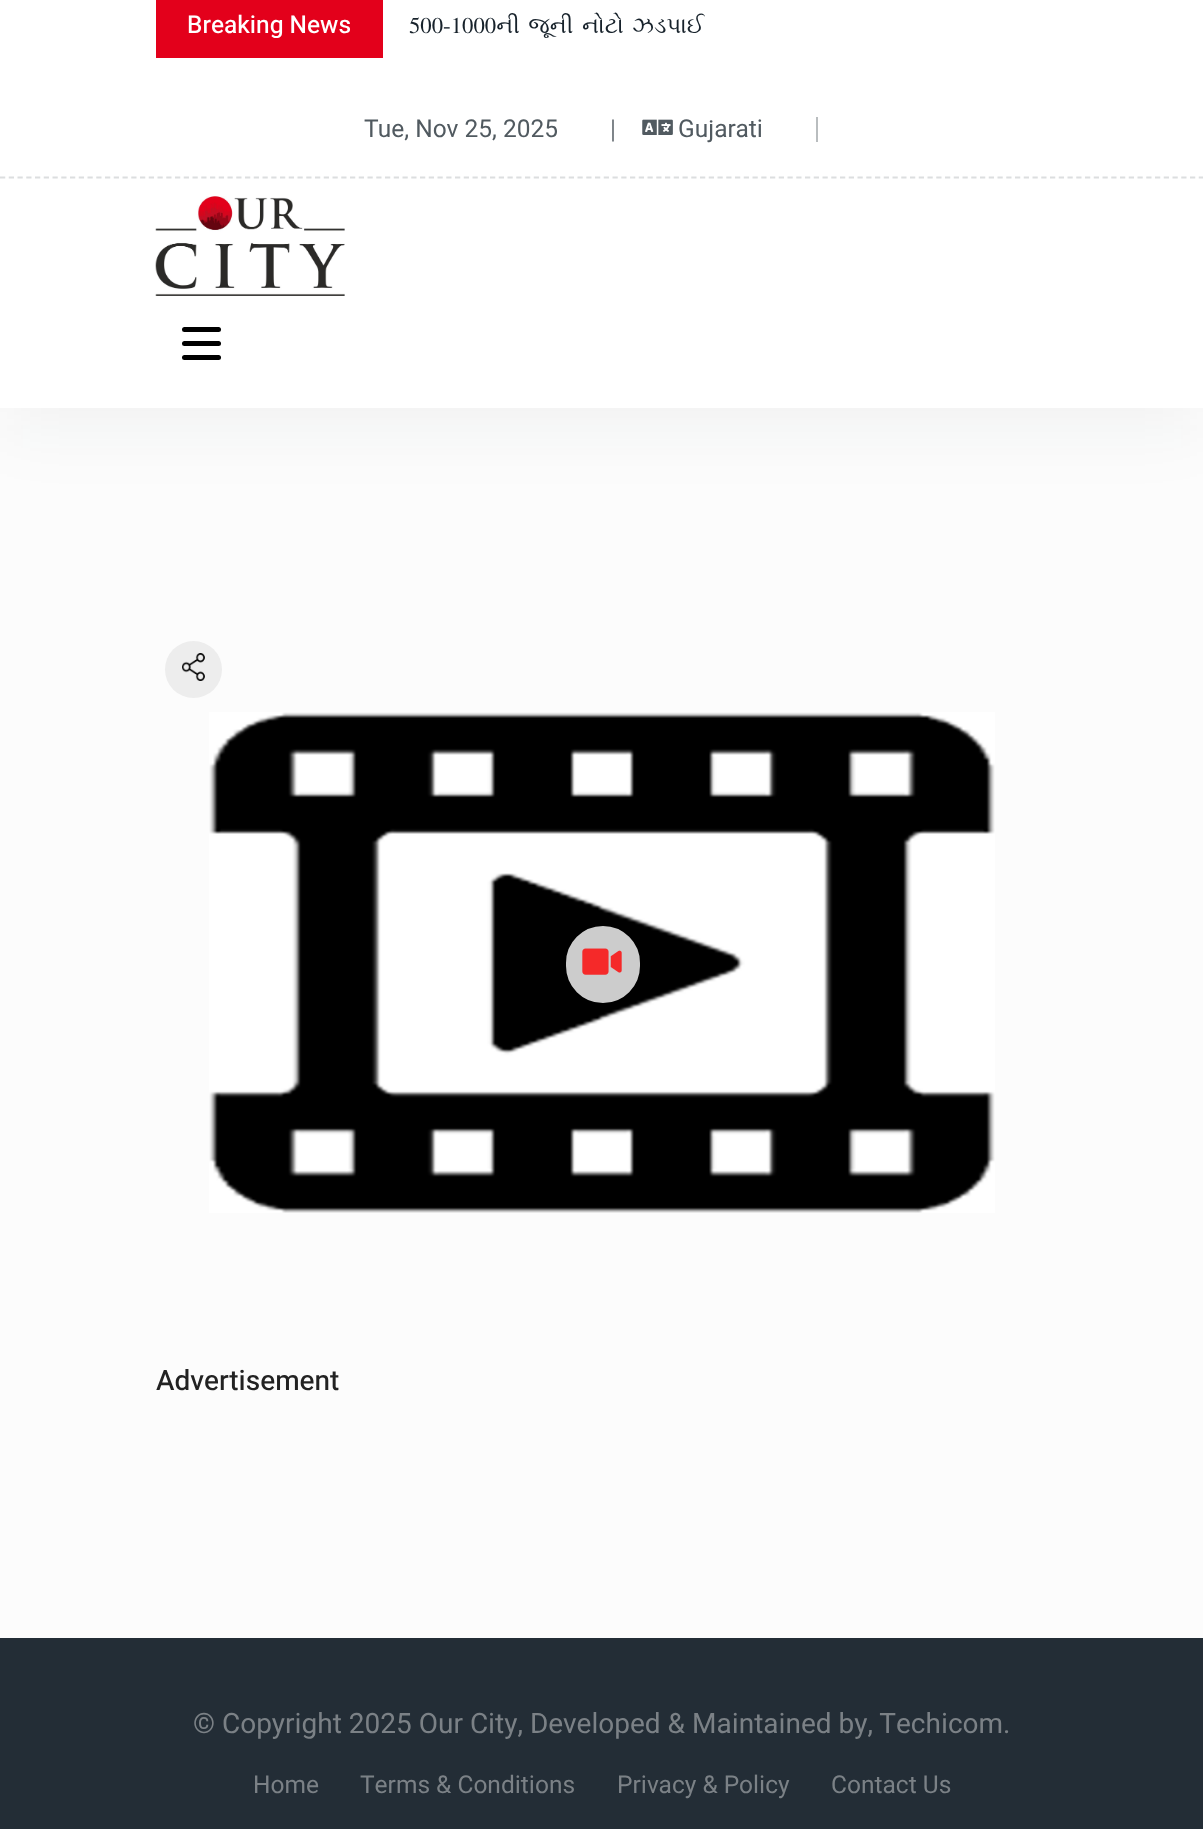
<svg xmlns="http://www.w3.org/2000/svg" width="1203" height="1829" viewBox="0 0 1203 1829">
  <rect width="100%" height="100%" fill="#fcfcfc"/>
  <path d="M0 12h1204v413H0z" fill="#17222b0d" filter="blur(35px)"/>
  <path d="M0 0h1203v408H0z" fill="#fff"/>
  <path d="M0 177.5H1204" fill="none" stroke="#dcdedf" stroke-width="1.8" stroke-dasharray="5.25 3.5"/>
  <path d="M156 0h227v58H156z" fill="#e3001b"/>
  <image x="642" y="119" width="31" height="16" href="img/1.png"/>
  <path d="M816 117h2v25H816z" fill="#b9bdbf"/>
  <image x="155" y="196" width="190" height="100" href="img/2.png"/>
  <rect x="182" y="327" width="39" height="5" rx="2.5" fill="#000"/>
  <rect x="182" y="341" width="39" height="5" rx="2.5" fill="#000"/>
  <rect x="182" y="355" width="39" height="5" rx="2.5" fill="#000"/>
  <circle cx="193.5" cy="669.5" r="28.5" fill="#ededed"/>
  <image x="182" y="653" width="23" height="28" href="img/3.png"/>
  <image x="209" y="712" width="786" height="501" href="img/4.png"/>
  <rect x="565" y="925" width="76" height="79" rx="38" fill="#ccc" stroke="#000" stroke-width="2"/>
  <image x="582" y="948" width="40" height="27" href="img/5.png"/>
  <path d="M0 1638h1203v191H0z" fill="#232d36"/>
  <text x="187" y="33" font-family="Heebo" font-size="24.5" font-weight="500" fill="#fff">Breaking News</text>
  <text x="409" y="33" word-spacing="3" font-family="FreeSerif" font-size="22.75" fill="#17222b">500-1000ની જૂની નોટો ઝડપાઈ</text>
  <text x="364" y="137" font-family="Heebo" font-size="24.5" fill="#515a60">Tue, Nov 25, 2025</text>
  <text x="610" y="138" font-family="Heebo" font-size="26" font-weight="300" fill="#515a60">|</text>
  <text x="678" y="137" font-family="Heebo" font-size="24.5" fill="#515a60">Gujarati</text>
  <text x="156" y="1390" font-family="Heebo" font-size="28" font-weight="500" fill="#222">Advertisement</text>
  <text x="193" y="1733" font-family="Heebo" font-size="28" fill="#7b8186">© Copyright 2025 Our City, Developed &amp; Maintained by, Techicom.</text>
  <g font-family="Heebo" font-size="24.5" fill="#7b8186">
    <text x="253" y="1793">Home</text>
    <text x="360" y="1793">Terms &amp; Conditions</text>
    <text x="617" y="1793">Privacy &amp; Policy</text>
    <text x="831" y="1793">Contact Us</text>
  </g>
</svg>
